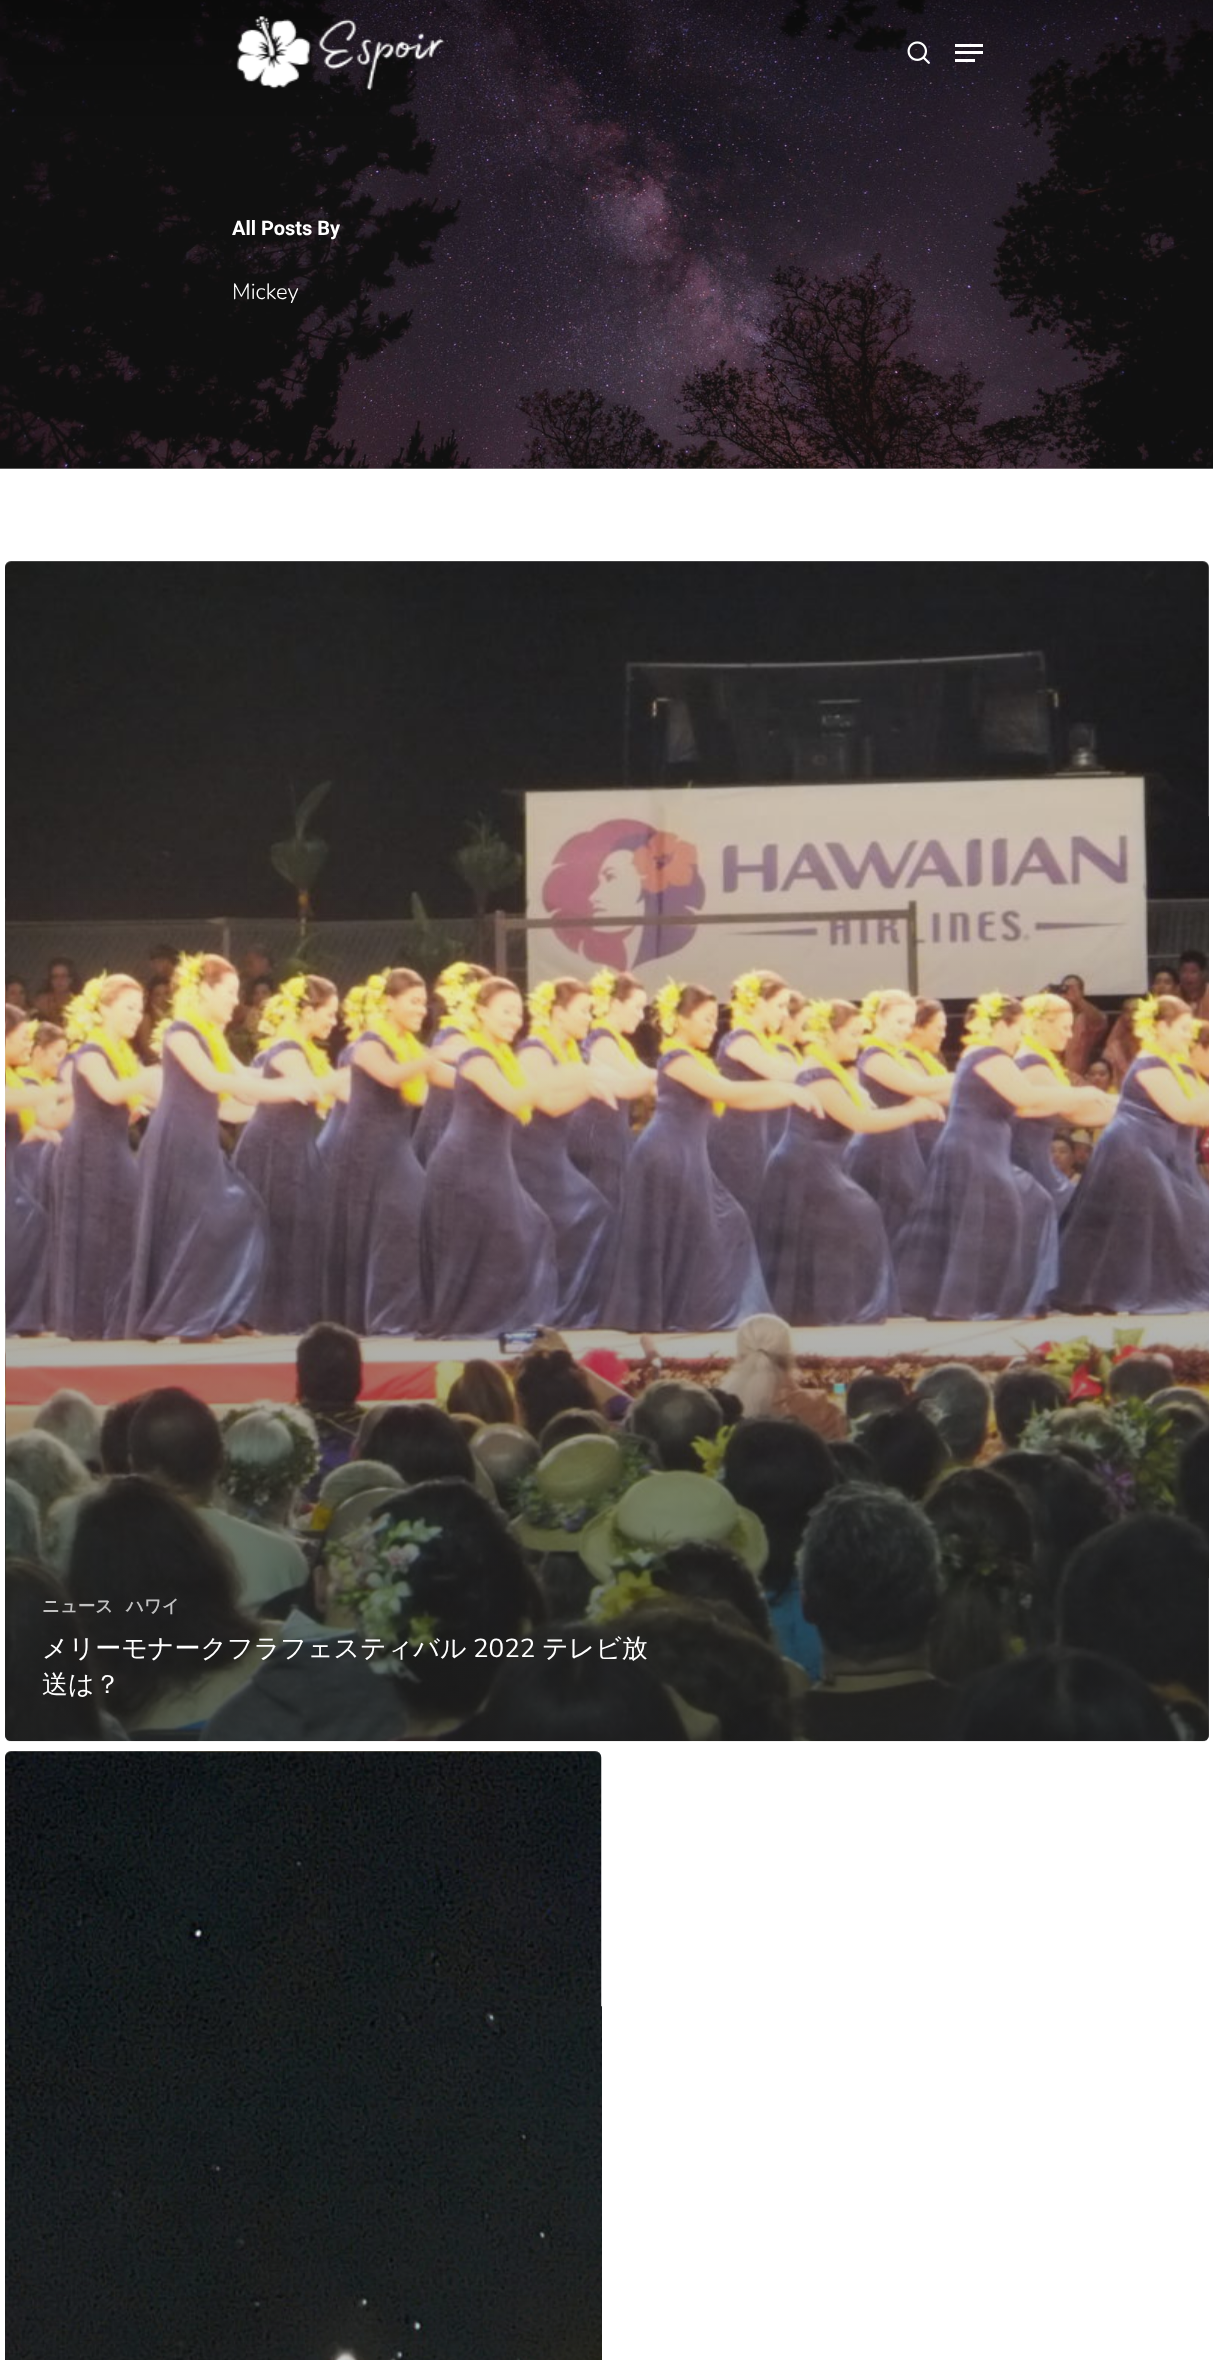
<svg xmlns="http://www.w3.org/2000/svg" width="1213" height="2360" viewBox="0 0 1213 2360">
  <defs>
    <linearGradient id="g1" gradientUnits="userSpaceOnUse" x1="609" y1="858" x2="609" y2="1746"><stop offset="0" stop-color="#232323" stop-opacity="0"/><stop offset="1" stop-color="#232323" stop-opacity="0.65"/></linearGradient>
  </defs>
  <rect width="100%" height="100%" fill="#fff"/>
  <path d="M0 468h1213v1H0z" fill="#b6b6b6"/>
  <image x="0" y="0" width="1213" height="469" href="img/3.png"/>
  <image x="236" y="16" width="209" height="74" href="img/1.png"/>
  <image x="907" y="41" width="23" height="23" href="img/2.png"/>
  <path d="M955 44h28v3H955z" fill="#fff"/>
  <path d="M955 59h20v3H955z" fill="#fff"/>
  <path d="M955 51h28v3H955z" fill="#fff"/>
  <rect x="5" y="561" width="1204" height="1180" rx="6" fill="#b3b3b3"/>
  <image x="5" y="561" width="1204" height="1181" href="img/4.png"/>
  <path d="M5 858H1209V1735C1209 1738.5 1206.5 1741 1203 1741H11C7.5 1741 5 1738.5 5 1735Z" fill="url(#g1)"/>
  <rect x="5" y="1751" width="596" height="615" rx="6" fill="#b3b3b3"/>
  <image x="5" y="1751" width="597" height="609" href="img/5.png"/>
  <text x="232" y="235" font-family="Roboto" font-size="20" font-weight="bold" fill="#fff">All Posts By</text>
  <text x="232" y="299" font-family="Nunito" font-size="22" font-weight="300" fill="#fff">Mickey</text>
  <g font-family="WenQuanYi Zen Hei" font-size="17.5" font-weight="bold" fill="#c1c1c1">
    <text x="42" y="1612">ニュース</text>
    <text x="126" y="1612">ハワイ</text>
  </g>
  <text x="42" y="1657" font-family="WenQuanYi Zen Hei" font-size="26" font-weight="500" fill="#fff">メリーモナークフラフェスティバル</text>
  <text x="473" y="1657" font-family="Nunito" font-size="26" fill="#fff">2022</text>
  <g font-family="WenQuanYi Zen Hei" font-size="26" font-weight="500" fill="#fff">
    <text x="542" y="1657">テレビ放</text>
    <text x="42" y="1693">送は？</text>
  </g>
</svg>
